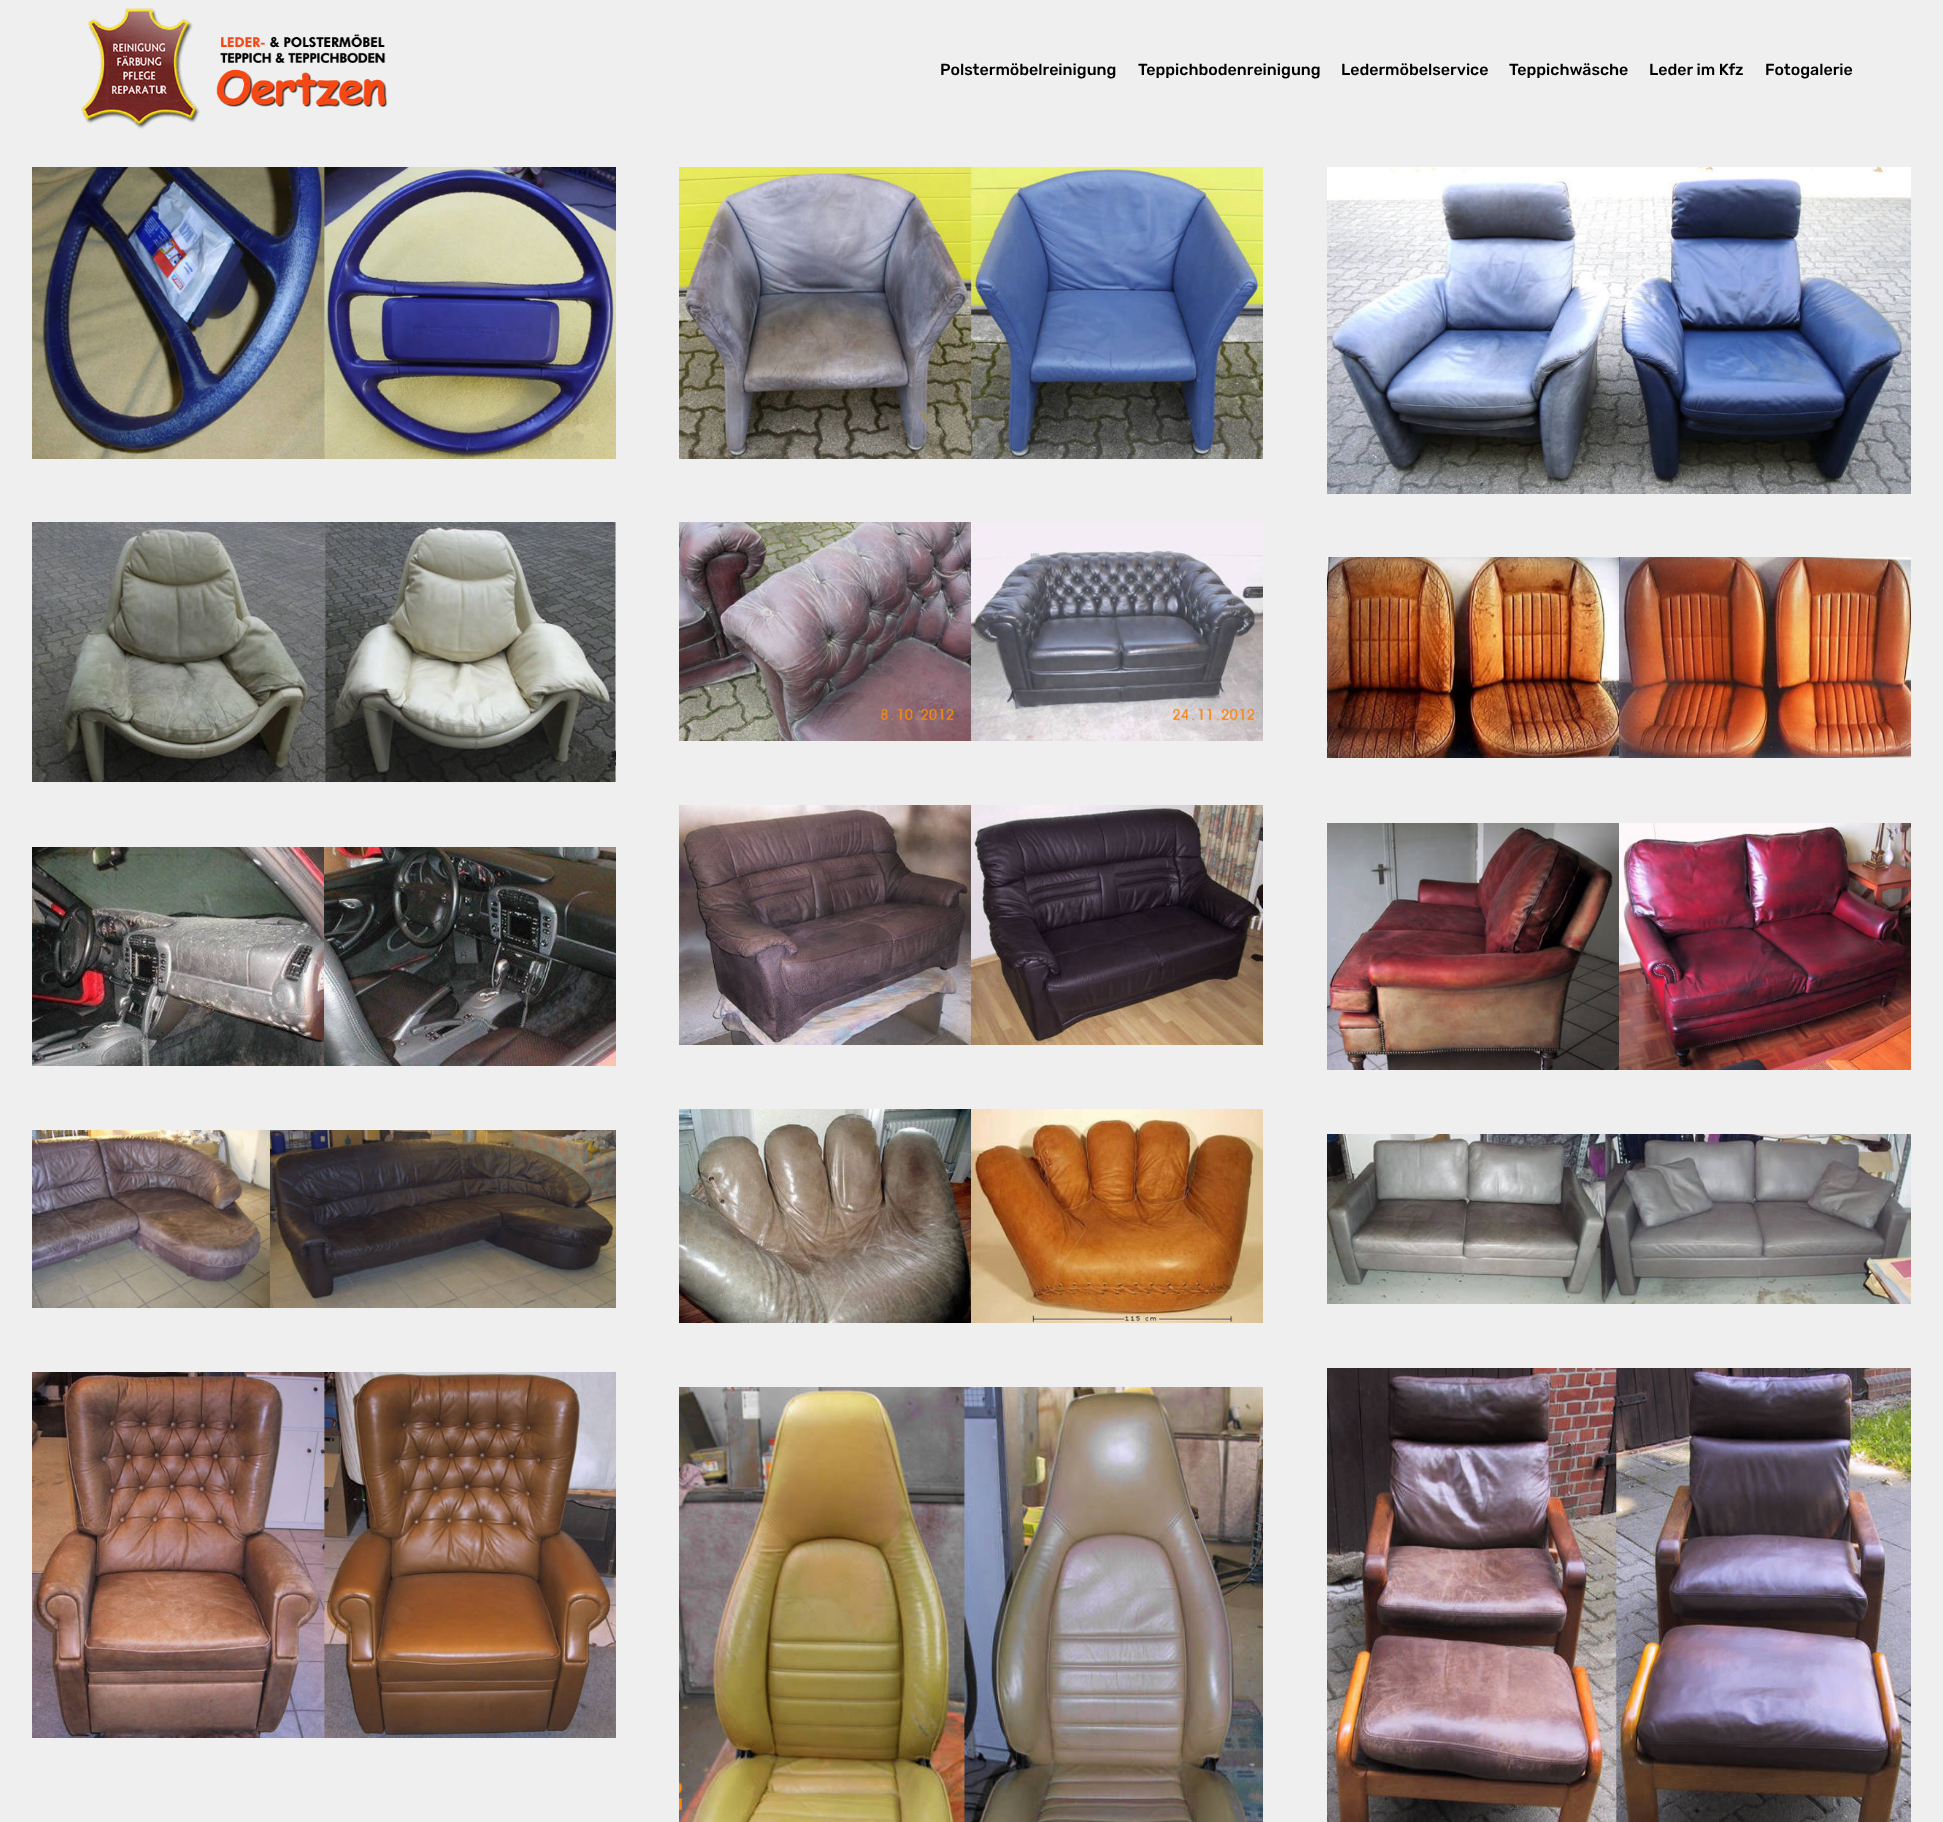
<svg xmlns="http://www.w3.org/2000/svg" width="1943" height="1822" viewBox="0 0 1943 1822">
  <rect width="100%" height="100%" fill="#efefef"/>
  <image x="81" y="8" width="307" height="121" href="img/1.png"/>
  <image x="32" y="167" width="584" height="292" href="img/2.png"/>
  <image x="679" y="167" width="584" height="292" href="img/3.png"/>
  <image x="1327" y="167" width="584" height="327" href="img/4.png"/>
  <image x="32" y="522" width="584" height="260" href="img/5.png"/>
  <image x="679" y="522" width="584" height="219" href="img/6.png"/>
  <image x="1327" y="557" width="584" height="201" href="img/7.png"/>
  <image x="32" y="847" width="584" height="219" href="img/8.png"/>
  <image x="679" y="805" width="584" height="240" href="img/9.png"/>
  <image x="1327" y="823" width="584" height="247" href="img/10.png"/>
  <image x="32" y="1130" width="584" height="178" href="img/11.png"/>
  <image x="679" y="1109" width="584" height="214" href="img/12.png"/>
  <image x="1327" y="1134" width="584" height="170" href="img/13.png"/>
  <image x="32" y="1372" width="584" height="366" href="img/14.png"/>
  <image x="679" y="1387" width="584" height="435" href="img/15.png"/>
  <image x="1327" y="1368" width="584" height="454" href="img/16.png"/>
  <g font-family="Rubik" font-size="16" font-weight="500" fill="#000">
    <text x="940" y="75">Polstermöbelreinigung</text>
    <text x="1138" y="75">Teppichbodenreinigung</text>
    <text x="1341" y="75">Ledermöbelservice</text>
    <text x="1509" y="75">Teppichwäsche</text>
    <text x="1649" y="75">Leder im Kfz</text>
    <text x="1765" y="75">Fotogalerie</text>
  </g>
</svg>
